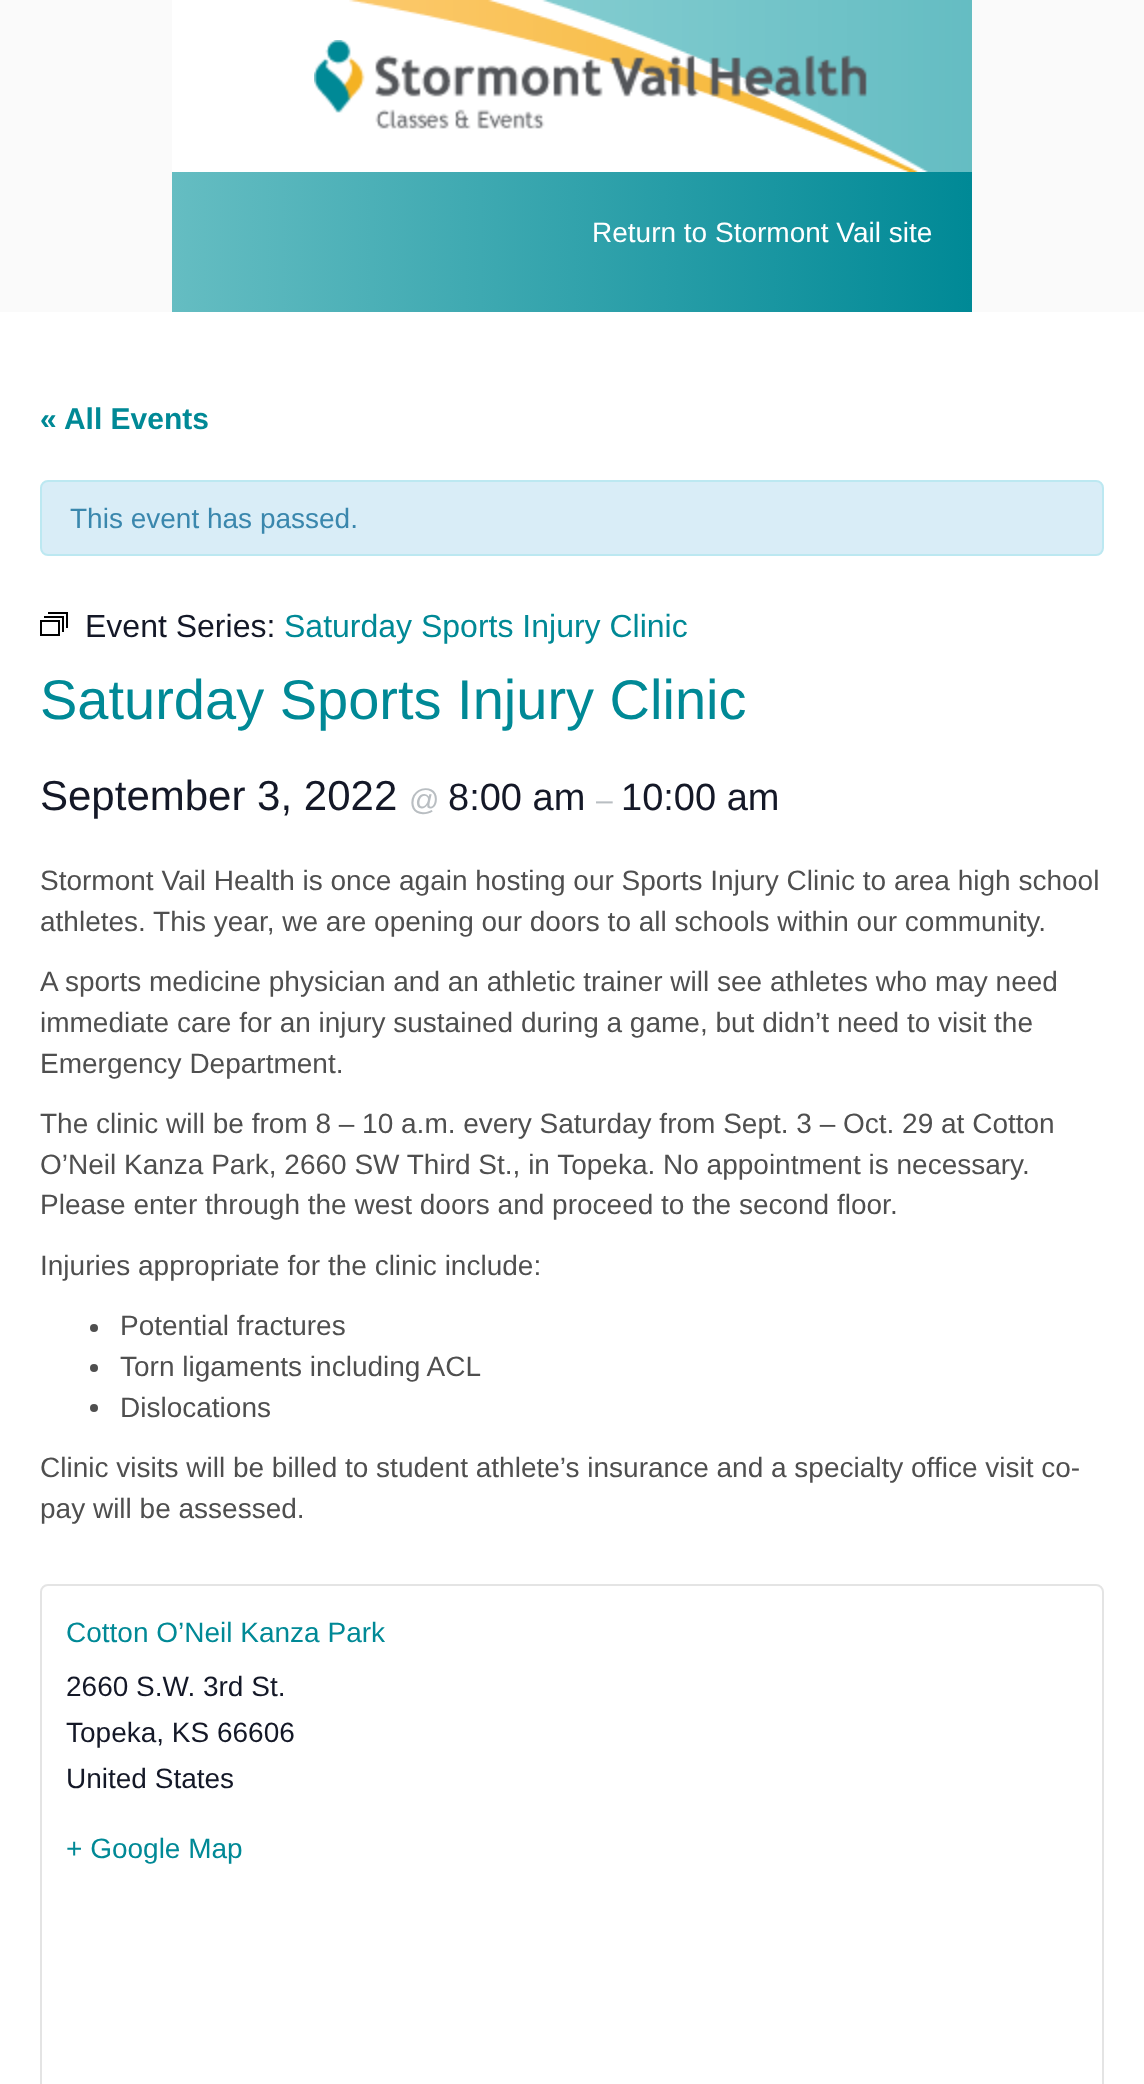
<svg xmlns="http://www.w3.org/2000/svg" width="1144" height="2084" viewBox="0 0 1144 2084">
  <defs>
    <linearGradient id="g1" gradientUnits="userSpaceOnUse" x1="172" y1="242" x2="972" y2="242"><stop offset="0" stop-color="#65bdc2"/><stop offset="1" stop-color="#008996"/></linearGradient>
  </defs>
  <rect width="100%" height="100%" fill="#fff"/>
  <path d="M0 0h1144v312H0z" fill="#fafafa"/>
  <path d="M172 0h756v172H172z" fill="#fff"/>
  <image x="349" y="0" width="623" height="172" href="img/1.png"/>
  <image x="314" y="40" width="553" height="89" href="img/2.png"/>
  <path d="M172 172h800v140H172z" fill="url(#g1)"/>
  <rect x="41" y="481" width="1062" height="74" rx="7" fill="#d9edf7" stroke="#bce8f1" stroke-width="2"/>
  <path d="M41 621h18v14H41z" fill="none" stroke="#000" stroke-width="2"/>
  <path d="M44 617H63V632M48 613H67V628" fill="none" stroke="#000" stroke-width="2"/>
  <circle cx="94" cy="1328" r="4" fill="#4f4f4f"/>
  <circle cx="94" cy="1368" r="4" fill="#4f4f4f"/>
  <circle cx="94" cy="1408" r="4" fill="#4f4f4f"/>
  <rect x="41" y="1585" width="1062" height="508" rx="7" fill="none" stroke="#e4e4e4" stroke-width="2"/>
  <text x="592" y="242" font-family="Liberation Sans" font-size="28" fill="#fff">Return to Stormont Vail site</text>
  <text x="40" y="429" font-family="Liberation Sans" font-size="30" font-weight="bold" fill="#008996">« All Events</text>
  <text x="70" y="528" font-family="Liberation Sans" font-size="28" fill="#3a87ad">This event has passed.</text>
  <text x="85" y="637" font-family="Liberation Sans" font-size="32" fill="#141827">Event Series:</text>
  <text x="284" y="637" font-family="Liberation Sans" font-size="32" fill="#008996">Saturday Sports Injury Clinic</text>
  <text x="40" y="719" font-family="Liberation Sans" font-size="56" fill="#008996">Saturday Sports Injury Clinic</text>
  <text x="40" y="810" font-family="Liberation Sans" font-size="42" fill="#141827">September 3, 2022</text>
  <text x="409" y="810" font-family="Liberation Sans" font-size="30" fill="#b9bec2">@</text>
  <text x="448" y="810" font-family="Liberation Sans" font-size="38" fill="#141827">8:00 am</text>
  <text x="596" y="810" font-family="Liberation Sans" font-size="30" fill="#b9bec2">–</text>
  <text x="621" y="810" font-family="Liberation Sans" font-size="38" fill="#141827">10:00 am</text>
  <g font-family="Liberation Sans" font-size="28" fill="#4f4f4f">
    <text x="40" y="890">Stormont Vail Health is once again hosting our Sports Injury Clinic to area high school</text>
    <text x="40" y="931">athletes. This year, we are opening our doors to all schools within our community.</text>
    <text x="40" y="991">A sports medicine physician and an athletic trainer will see athletes who may need</text>
    <text x="40" y="1032">immediate care for an injury sustained during a game, but didn’t need to visit the</text>
    <text x="40" y="1073">Emergency Department.</text>
    <text x="40" y="1133">The clinic will be from 8 – 10 a.m. every Saturday from Sept. 3 – Oct. 29 at Cotton</text>
    <text x="40" y="1174">O’Neil Kanza Park, 2660 SW Third St., in Topeka. No appointment is necessary.</text>
    <text x="40" y="1214">Please enter through the west doors and proceed to the second floor.</text>
    <text x="40" y="1275">Injuries appropriate for the clinic include:</text>
    <text x="120" y="1335">Potential fractures</text>
    <text x="120" y="1376">Torn ligaments including ACL</text>
    <text x="120" y="1417">Dislocations</text>
    <text x="40" y="1477">Clinic visits will be billed to student athlete’s insurance and a specialty office visit co-</text>
    <text x="40" y="1518">pay will be assessed.</text>
  </g>
  <text x="66" y="1642" font-family="Liberation Sans" font-size="28" fill="#008996">Cotton O’Neil Kanza Park</text>
  <g font-family="Liberation Sans" font-size="28" fill="#141827">
    <text x="66" y="1696">2660 S.W. 3rd St.</text>
    <text x="66" y="1742">Topeka, KS 66606</text>
    <text x="66" y="1788">United States</text>
  </g>
  <text x="66" y="1858" font-family="Liberation Sans" font-size="28" fill="#008996">+ Google Map</text>
</svg>
